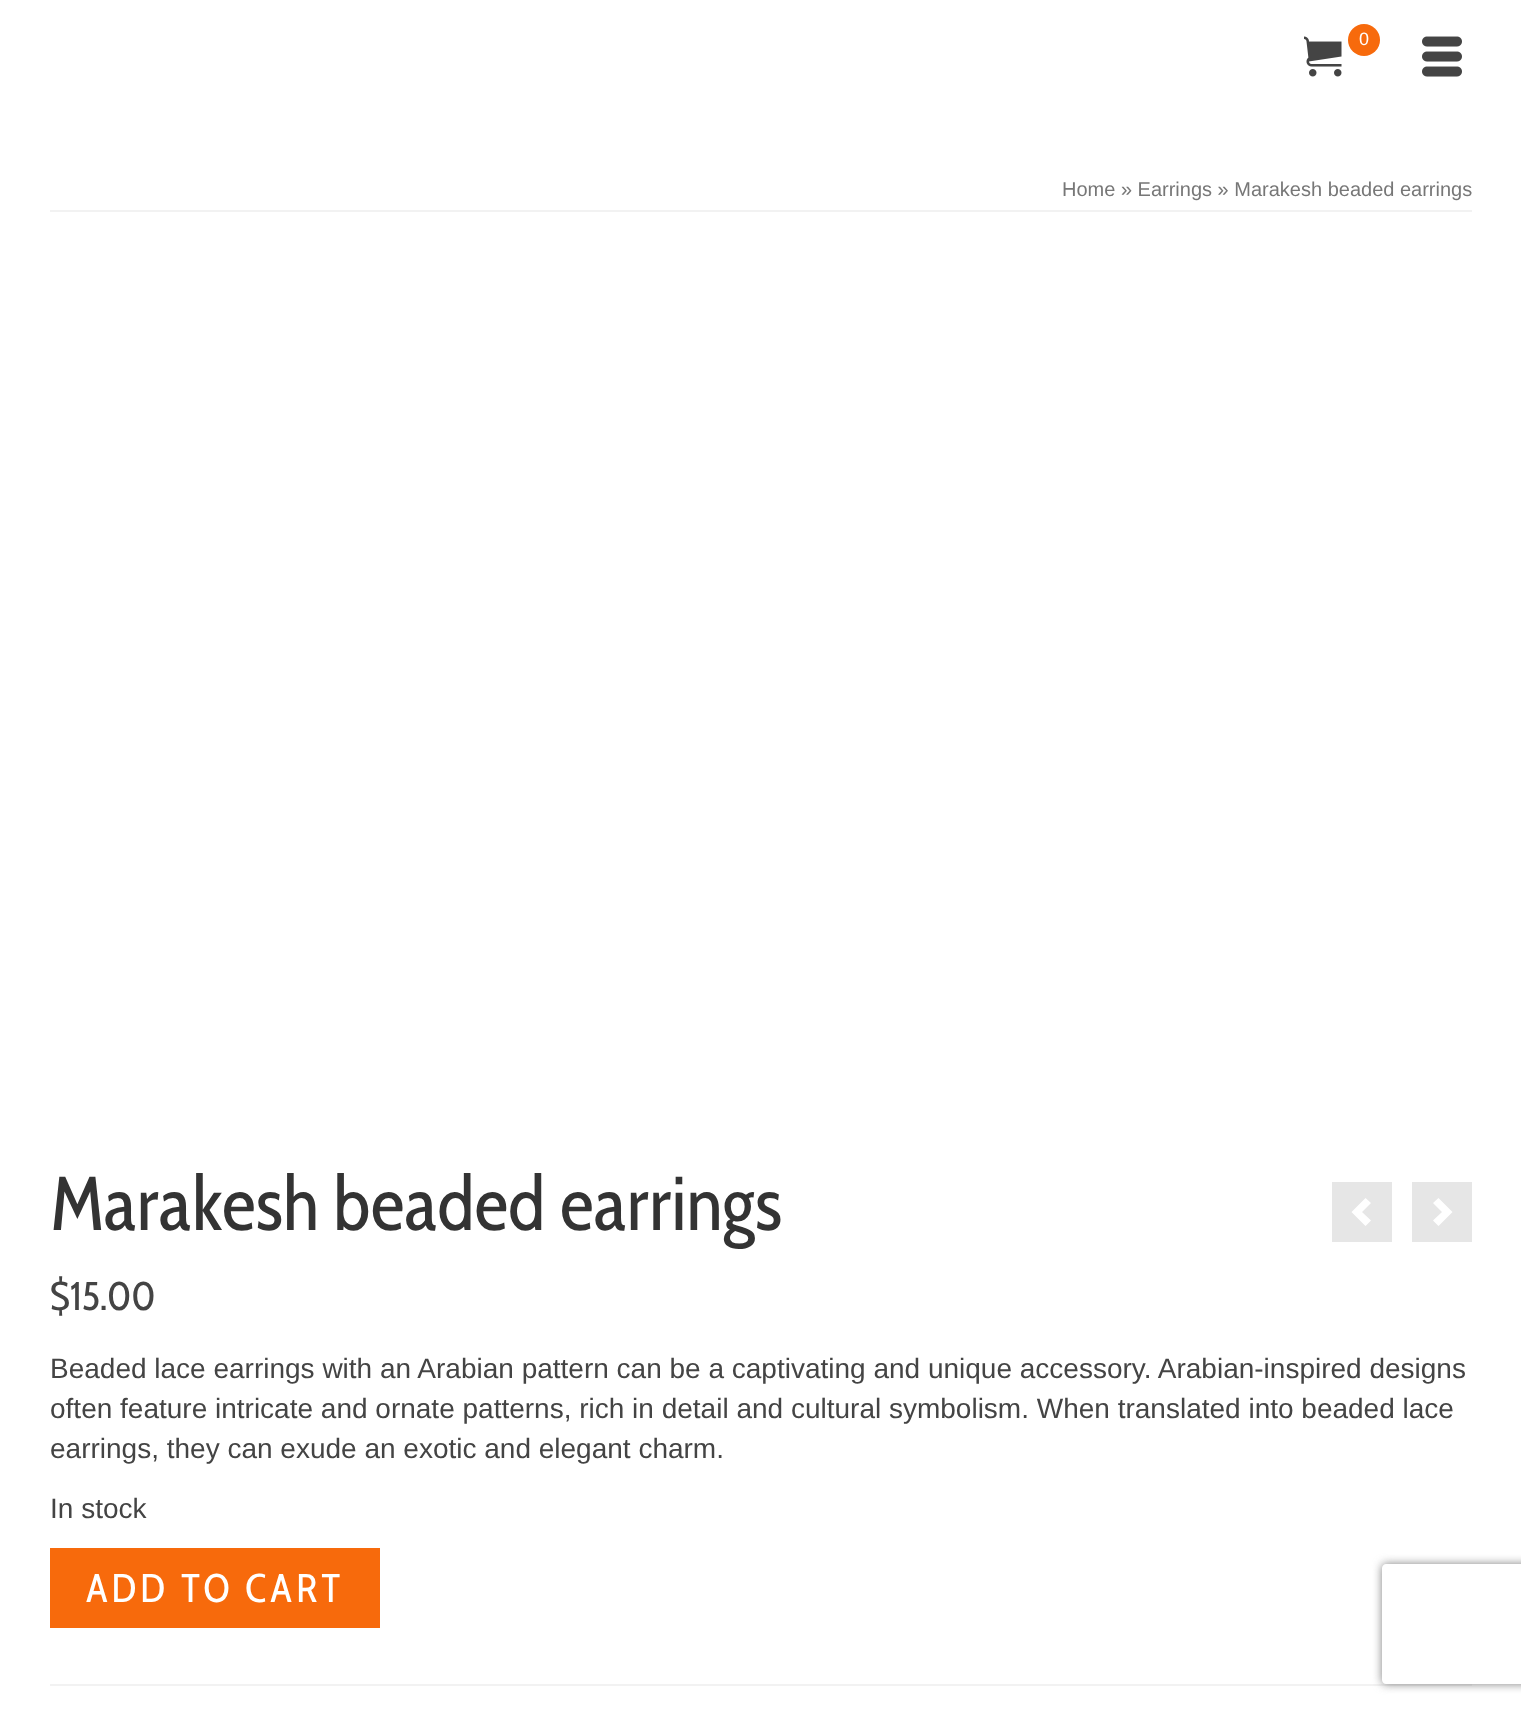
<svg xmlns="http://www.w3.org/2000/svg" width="1521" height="1711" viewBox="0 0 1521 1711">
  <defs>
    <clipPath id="clip1"><path d="M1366 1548H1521V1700H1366ZM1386 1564H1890C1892 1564 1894 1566 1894 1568V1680C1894 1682 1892 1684 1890 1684H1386C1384 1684 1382 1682 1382 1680V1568C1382 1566 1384 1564 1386 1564Z" clip-rule="evenodd"/></clipPath>
  </defs>
  <rect width="100%" height="100%" fill="#fff"/>
  <image x="1304" y="36" width="38" height="41" href="img/1.png"/>
  <circle cx="1364" cy="40" r="16" fill="#f76a0c"/>
  <image x="1422" y="36" width="40" height="41" href="img/2.png"/>
  <path d="M50 210h1422v2H50z" fill="#f2f2f2"/>
  <path d="M1332 1182h60v60H1332z" fill="#e6e6e6"/>
  <path d="M1412 1182h60v60H1412z" fill="#e6e6e6"/>
  <path d="M1365.5 1226L1371 1220.5L1362 1212L1371 1203L1365.5 1198L1351.5 1212Z" fill="#fff"/>
  <path d="M1438.5 1198L1433 1203L1442 1212L1433 1220.5L1438.5 1226L1452.5 1212Z" fill="#fff"/>
  <path d="M50 1548h330v80H50z" fill="#f76a0c"/>
  <path d="M50 1684h1422v2H50z" fill="#f2f2f2"/>
  <g clip-path="url(#clip1)">
    <rect x="1382" y="1564" width="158" height="120" rx="4" fill="#808080" filter="blur(5px)"/>
  </g>
  <text x="1359" y="45" font-family="Liberation Sans" font-size="18" fill="#fff">0</text>
  <text x="1062" y="196" font-family="Liberation Sans" font-size="20" fill="#777">Home » Earrings » Marakesh beaded earrings</text>
  <text x="50" y="1230" font-family="Cabin Condensed" font-size="76" fill="#333">Marakesh beaded earrings</text>
  <text x="50" y="1310" font-family="Cabin Condensed" font-size="40" fill="#444">$15.00</text>
  <g font-family="Liberation Sans" font-size="28" fill="#444">
    <text x="50" y="1378">Beaded lace earrings with an Arabian pattern can be a captivating and unique accessory. Arabian-inspired designs</text>
    <text x="50" y="1418">often feature intricate and ornate patterns, rich in detail and cultural symbolism. When translated into beaded lace</text>
    <text x="50" y="1458">earrings, they can exude an exotic and elegant charm.</text>
    <text x="50" y="1518">In stock</text>
  </g>
  <text x="86" y="1602" font-family="Cabin Condensed" font-size="40" letter-spacing="4" fill="#fff">ADD TO CART</text>
</svg>
